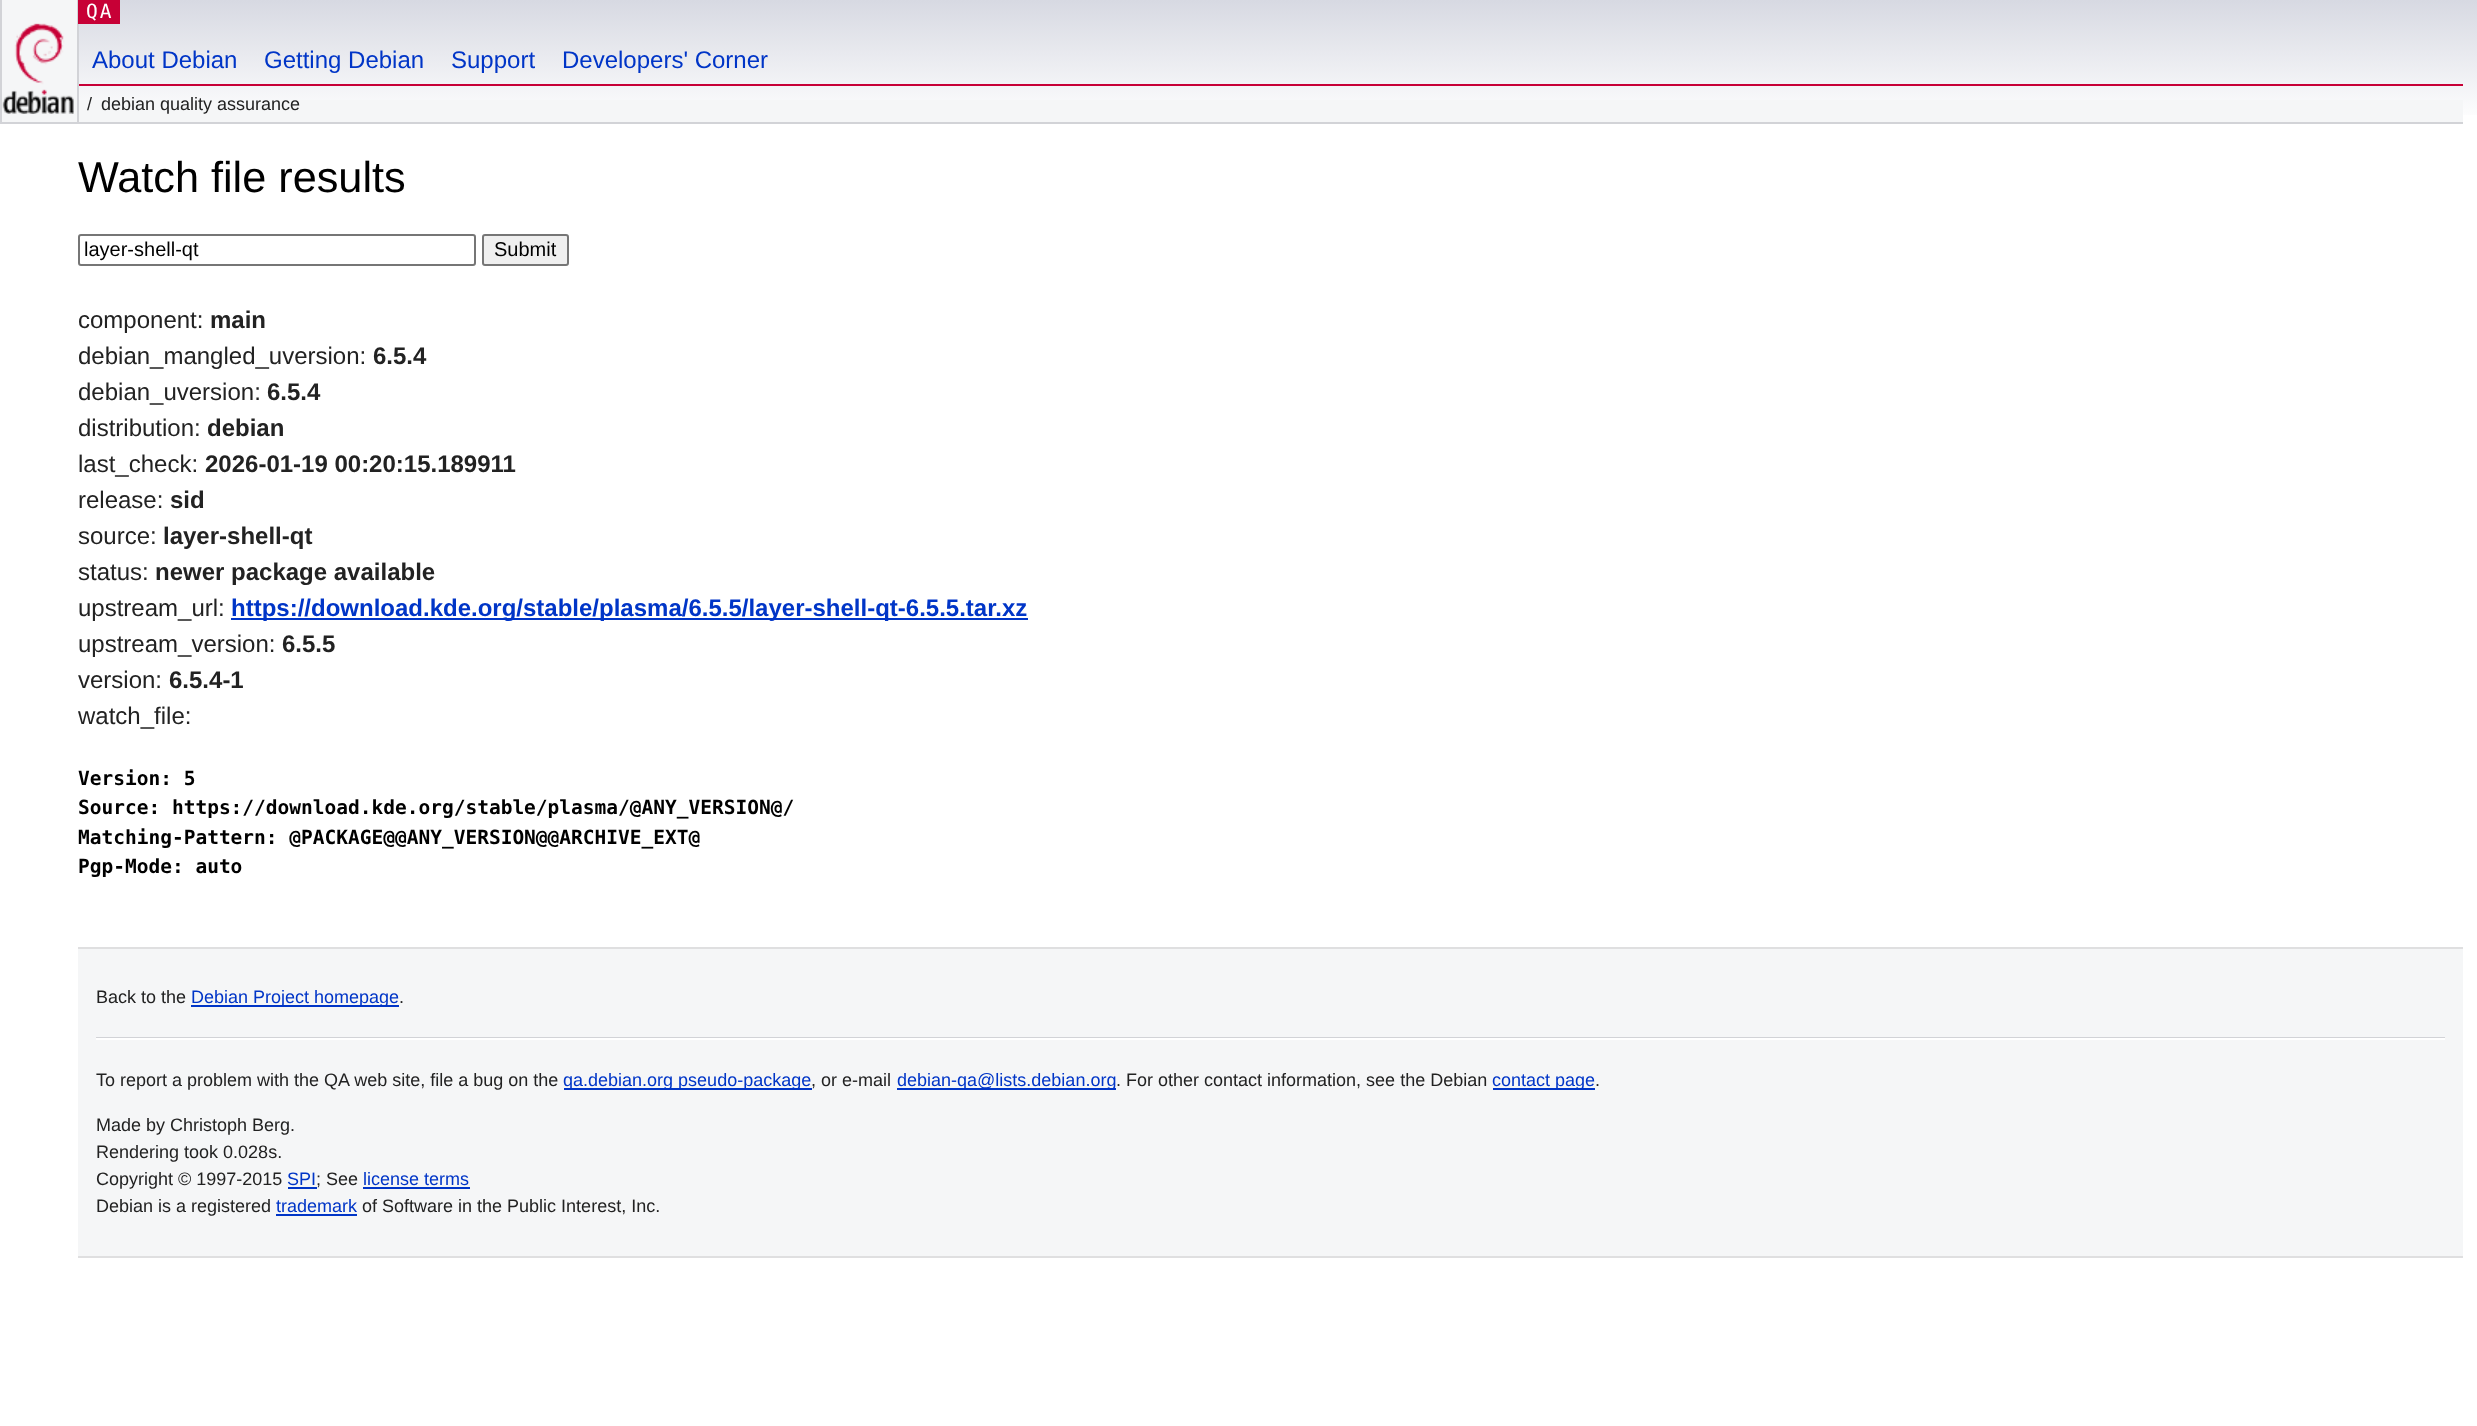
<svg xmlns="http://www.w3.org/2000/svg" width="2477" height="1426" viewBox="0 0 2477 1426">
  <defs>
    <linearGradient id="g1" gradientUnits="userSpaceOnUse" x1="1239" y1="0" x2="1239" y2="123"><stop offset="0" stop-color="#d7d9e2"/><stop offset="1" stop-color="#fff"/></linearGradient>
  </defs>
  <rect width="100%" height="100%" fill="#fff"/>
  <path d="M79 0h2398v115H79z" fill="url(#g1)"/>
  <path d="M2 0h75v122H2z" fill="#f5f6f7"/>
  <path d="M78 84h2385v2H78z" fill="#c70036"/>
  <path d="M78 122h2385v2H78z" fill="#d2d3d7"/>
  <path d="M77 0h2v123H77z" fill="#d2d3d7"/>
  <path d="M0 122h78v2H0z" fill="#d2d3d7"/>
  <path d="M0 0h2v123H0z" fill="#d2d3d7"/>
  <image x="2" y="23" width="72" height="91" href="img/1.png"/>
  <path d="M78 0h42v24H78z" fill="#c70036"/>
  <path d="M79 100h2384v22H79z" fill="#f5f6f7"/>
  <rect x="79" y="235" width="396" height="30" rx="2" fill="none" stroke="#767676" stroke-width="2"/>
  <rect x="483" y="235" width="85" height="30" rx="2" fill="#efefef" stroke="#767676" stroke-width="2"/>
  <path d="M231 618h797v2H231z" fill="#0035c7"/>
  <path d="M78 949h2385v307H78z" fill="#f5f6f7"/>
  <path d="M78 947h2385v2H78z" fill="#dfdfe0"/>
  <path d="M78 1256h2385v2H78z" fill="#dfdfe0"/>
  <path d="M191 1005h208v2H191z" fill="#0035c7"/>
  <path d="M96 1037h2349v1H96z" fill="#d2d3d7"/>
  <path d="M96 1038h2349v2H96z" fill="#fff"/>
  <path d="M564 1088h248v2H564z" fill="#0035c7"/>
  <path d="M897 1088h219v2H897z" fill="#0035c7"/>
  <path d="M1493 1088h102v2H1493z" fill="#0035c7"/>
  <path d="M288 1187h29v2H288z" fill="#0035c7"/>
  <path d="M363 1187h107v2H363z" fill="#0035c7"/>
  <path d="M276 1214h81v2H276z" fill="#0035c7"/>
  <text x="86" y="18" font-family="DejaVu Sans Mono" font-size="19.5" letter-spacing="2" fill="#fff">QA</text>
  <g font-family="Liberation Sans" font-size="24" fill="#0035c7">
    <text x="92" y="68">About Debian</text>
    <text x="264" y="68">Getting Debian</text>
    <text x="451" y="68">Support</text>
    <text x="562" y="68">Developers' Corner</text>
  </g>
  <g font-family="Liberation Sans" font-size="18" fill="#222">
    <text x="87" y="110">/</text>
    <text x="101" y="110">debian quality assurance</text>
  </g>
  <text x="78" y="192" font-family="Liberation Sans" font-size="43.25" fill="#000">Watch file results</text>
  <g font-family="Liberation Sans" font-size="20" fill="#000">
    <text x="84" y="256">layer-shell-qt</text>
    <text x="494" y="256">Submit</text>
  </g>
  <text x="78" y="328" font-family="Liberation Sans" font-size="24" fill="#222">component:</text>
  <text x="210" y="328" font-family="Liberation Sans" font-size="24" font-weight="bold" fill="#222">main</text>
  <text x="78" y="364" font-family="Liberation Sans" font-size="24" fill="#222">debian_mangled_uversion:</text>
  <text x="373" y="364" font-family="Liberation Sans" font-size="24" font-weight="bold" fill="#222">6.5.4</text>
  <text x="78" y="400" font-family="Liberation Sans" font-size="24" fill="#222">debian_uversion:</text>
  <text x="267" y="400" font-family="Liberation Sans" font-size="24" font-weight="bold" fill="#222">6.5.4</text>
  <text x="78" y="436" font-family="Liberation Sans" font-size="24" fill="#222">distribution:</text>
  <text x="207" y="436" font-family="Liberation Sans" font-size="24" font-weight="bold" fill="#222">debian</text>
  <text x="78" y="472" font-family="Liberation Sans" font-size="24" fill="#222">last_check:</text>
  <text x="205" y="472" font-family="Liberation Sans" font-size="24" font-weight="bold" fill="#222">2026-01-19 00:20:15.189911</text>
  <text x="78" y="508" font-family="Liberation Sans" font-size="24" fill="#222">release:</text>
  <text x="170" y="508" font-family="Liberation Sans" font-size="24" font-weight="bold" fill="#222">sid</text>
  <text x="78" y="544" font-family="Liberation Sans" font-size="24" fill="#222">source:</text>
  <text x="163" y="544" font-family="Liberation Sans" font-size="24" font-weight="bold" fill="#222">layer-shell-qt</text>
  <text x="78" y="580" font-family="Liberation Sans" font-size="24" fill="#222">status:</text>
  <text x="155" y="580" font-family="Liberation Sans" font-size="24" font-weight="bold" fill="#222">newer package available</text>
  <text x="78" y="616" font-family="Liberation Sans" font-size="24" fill="#222">upstream_url:</text>
  <text x="231" y="616" font-family="Liberation Sans" font-size="24" font-weight="bold" fill="#0035c7">https://download.kde.org/stable/plasma/6.5.5/layer-shell-qt-6.5.5.tar.xz</text>
  <text x="78" y="652" font-family="Liberation Sans" font-size="24" fill="#222">upstream_version:</text>
  <text x="282" y="652" font-family="Liberation Sans" font-size="24" font-weight="bold" fill="#222">6.5.5</text>
  <text x="78" y="688" font-family="Liberation Sans" font-size="24" fill="#222">version:</text>
  <text x="169" y="688" font-family="Liberation Sans" font-size="24" font-weight="bold" fill="#222">6.5.4-1</text>
  <text x="78" y="724" font-family="Liberation Sans" font-size="24" fill="#222">watch_file:</text>
  <g font-family="DejaVu Sans Mono" font-size="19.5" font-weight="bold" fill="#000">
    <text x="78" y="785">Version: 5</text>
    <text x="78" y="814">Source: https://download.kde.org/stable/plasma/@ANY_VERSION@/</text>
    <text x="78" y="844">Matching-Pattern: @PACKAGE@@ANY_VERSION@@ARCHIVE_EXT@</text>
    <text x="78" y="873">Pgp-Mode: auto</text>
  </g>
  <text x="96" y="1003" font-family="Liberation Sans" font-size="18" fill="#222">Back to the</text>
  <text x="191" y="1003" font-family="Liberation Sans" font-size="18" fill="#0035c7">Debian Project homepage</text>
  <g font-family="Liberation Sans" font-size="18" fill="#222">
    <text x="399" y="1003">.</text>
    <text x="96" y="1086">To report a problem with the QA web site, file a bug on the</text>
  </g>
  <text x="563" y="1086" font-family="Liberation Sans" font-size="18" fill="#0035c7">qa.debian.org pseudo-package</text>
  <text x="811" y="1086" font-family="Liberation Sans" font-size="18" fill="#222">, or e-mail</text>
  <text x="897" y="1086" font-family="Liberation Sans" font-size="18" fill="#0035c7">debian-qa@lists.debian.org</text>
  <text x="1116" y="1086" font-family="Liberation Sans" font-size="18" fill="#222">. For other contact information, see the Debian</text>
  <text x="1492" y="1086" font-family="Liberation Sans" font-size="18" fill="#0035c7">contact page</text>
  <g font-family="Liberation Sans" font-size="18" fill="#222">
    <text x="1595" y="1086">.</text>
    <text x="96" y="1131">Made by Christoph Berg.</text>
    <text x="96" y="1158">Rendering took 0.028s.</text>
    <text x="96" y="1185">Copyright © 1997-2015</text>
  </g>
  <text x="287" y="1185" font-family="Liberation Sans" font-size="18" fill="#0035c7">SPI</text>
  <text x="316" y="1185" font-family="Liberation Sans" font-size="18" fill="#222">; See</text>
  <text x="363" y="1185" font-family="Liberation Sans" font-size="18" fill="#0035c7">license terms</text>
  <text x="96" y="1212" font-family="Liberation Sans" font-size="18" fill="#222">Debian is a registered</text>
  <text x="276" y="1212" font-family="Liberation Sans" font-size="18" fill="#0035c7">trademark</text>
  <text x="362" y="1212" font-family="Liberation Sans" font-size="18" fill="#222">of Software in the Public Interest, Inc.</text>
</svg>
